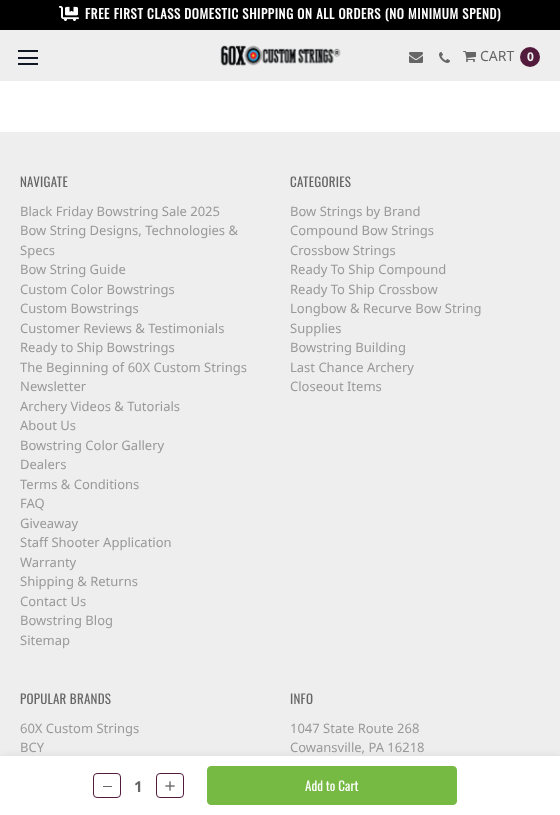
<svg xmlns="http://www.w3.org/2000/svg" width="560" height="815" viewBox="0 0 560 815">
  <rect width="100%" height="100%" fill="#fff"/>
  <path d="M0 0h560v30H0z" fill="#000"/>
  <image x="59" y="6" width="20" height="15" href="img/1.png"/>
  <path d="M0 30h560v51H0z" fill="#eee"/>
  <path d="M18 57h20v2H18z" fill="#101623"/>
  <path d="M18 50h20v2H18z" fill="#101623"/>
  <path d="M18 63h20v2H18z" fill="#101623"/>
  <image x="220" y="45" width="121" height="21" href="img/2.png"/>
  <image x="409" y="52" width="14" height="11" href="img/3.png"/>
  <image x="439" y="52" width="11" height="11" href="img/4.png"/>
  <image x="463" y="51" width="13" height="11" href="img/5.png"/>
  <circle cx="530" cy="57" r="10" fill="#531b3b"/>
  <path d="M0 132h560v624H0z" fill="#eee"/>
  <path d="M1 757h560v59H1z" fill="#0000001a" filter="blur(5px)"/>
  <path d="M0 756h560v59H0z" fill="#fff"/>
  <rect x="93.5" y="773.5" width="27" height="24" rx="3.5" fill="none" stroke="#531b3b"/>
  <path d="M103 786h9v1H103z" fill="#666"/>
  <rect x="156.5" y="773.5" width="27" height="24" rx="3.5" fill="none" stroke="#531b3b"/>
  <image x="165" y="781" width="10" height="10" href="img/6.png"/>
  <rect x="207.5" y="766.5" width="249" height="38" rx="3.5" fill="#76b943" stroke="#76b943"/>
  <text x="85" y="19" font-family="Oswald" font-size="13" font-weight="bold" letter-spacing="0.65" fill="#fff">FREE FIRST CLASS DOMESTIC SHIPPING ON ALL ORDERS (NO MINIMUM SPEND)</text>
  <text x="480" y="61" font-family="Noto Sans" font-size="14" fill="#666">CART</text>
  <text x="527" y="61" font-family="Noto Sans" font-size="12" font-weight="bold" fill="#eee">0</text>
  <text x="20" y="187" font-family="Oswald" font-size="13" letter-spacing="0.25" fill="#666">NAVIGATE</text>
  <g font-family="Noto Sans" font-size="13" fill="#999">
    <text x="20" y="216">Black Friday Bowstring Sale 2025</text>
    <text x="20" y="235">Bow String Designs, Technologies &amp;</text>
    <text x="20" y="255">Specs</text>
    <text x="20" y="274">Bow String Guide</text>
    <text x="20" y="294">Custom Color Bowstrings</text>
    <text x="20" y="313">Custom Bowstrings</text>
    <text x="20" y="333">Customer Reviews &amp; Testimonials</text>
    <text x="20" y="352">Ready to Ship Bowstrings</text>
    <text x="20" y="372">The Beginning of 60X Custom Strings</text>
    <text x="20" y="391">Newsletter</text>
    <text x="20" y="411">Archery Videos &amp; Tutorials</text>
    <text x="20" y="430">About Us</text>
    <text x="20" y="450">Bowstring Color Gallery</text>
    <text x="20" y="469">Dealers</text>
    <text x="20" y="489">Terms &amp; Conditions</text>
    <text x="20" y="508">FAQ</text>
    <text x="20" y="528">Giveaway</text>
    <text x="20" y="547">Staff Shooter Application</text>
    <text x="20" y="567">Warranty</text>
    <text x="20" y="586">Shipping &amp; Returns</text>
    <text x="20" y="606">Contact Us</text>
    <text x="20" y="625">Bowstring Blog</text>
    <text x="20" y="645">Sitemap</text>
  </g>
  <text x="290" y="187" font-family="Oswald" font-size="13" letter-spacing="0.25" fill="#666">CATEGORIES</text>
  <g font-family="Noto Sans" font-size="13" fill="#999">
    <text x="290" y="216">Bow Strings by Brand</text>
    <text x="290" y="235">Compound Bow Strings</text>
    <text x="290" y="255">Crossbow Strings</text>
    <text x="290" y="274">Ready To Ship Compound</text>
    <text x="290" y="294">Ready To Ship Crossbow</text>
    <text x="290" y="313">Longbow &amp; Recurve Bow String</text>
    <text x="290" y="333">Supplies</text>
    <text x="290" y="352">Bowstring Building</text>
    <text x="290" y="372">Last Chance Archery</text>
    <text x="290" y="391">Closeout Items</text>
  </g>
  <text x="20" y="704" font-family="Oswald" font-size="13" letter-spacing="0.25" fill="#666">POPULAR BRANDS</text>
  <g font-family="Noto Sans" font-size="13" fill="#999">
    <text x="20" y="733">60X Custom Strings</text>
    <text x="20" y="752">BCY</text>
  </g>
  <text x="290" y="704" font-family="Oswald" font-size="13" letter-spacing="0.25" fill="#666">INFO</text>
  <g font-family="Noto Sans" font-size="13" fill="#999">
    <text x="290" y="733">1047 State Route 268</text>
    <text x="290" y="752">Cowansville, PA 16218</text>
  </g>
  <text x="134" y="792" font-family="Noto Sans" font-size="15" font-weight="bold" fill="#666">1</text>
  <text x="305" y="791" font-family="Oswald" font-size="13" fill="#fff">Add to Cart</text>
</svg>
